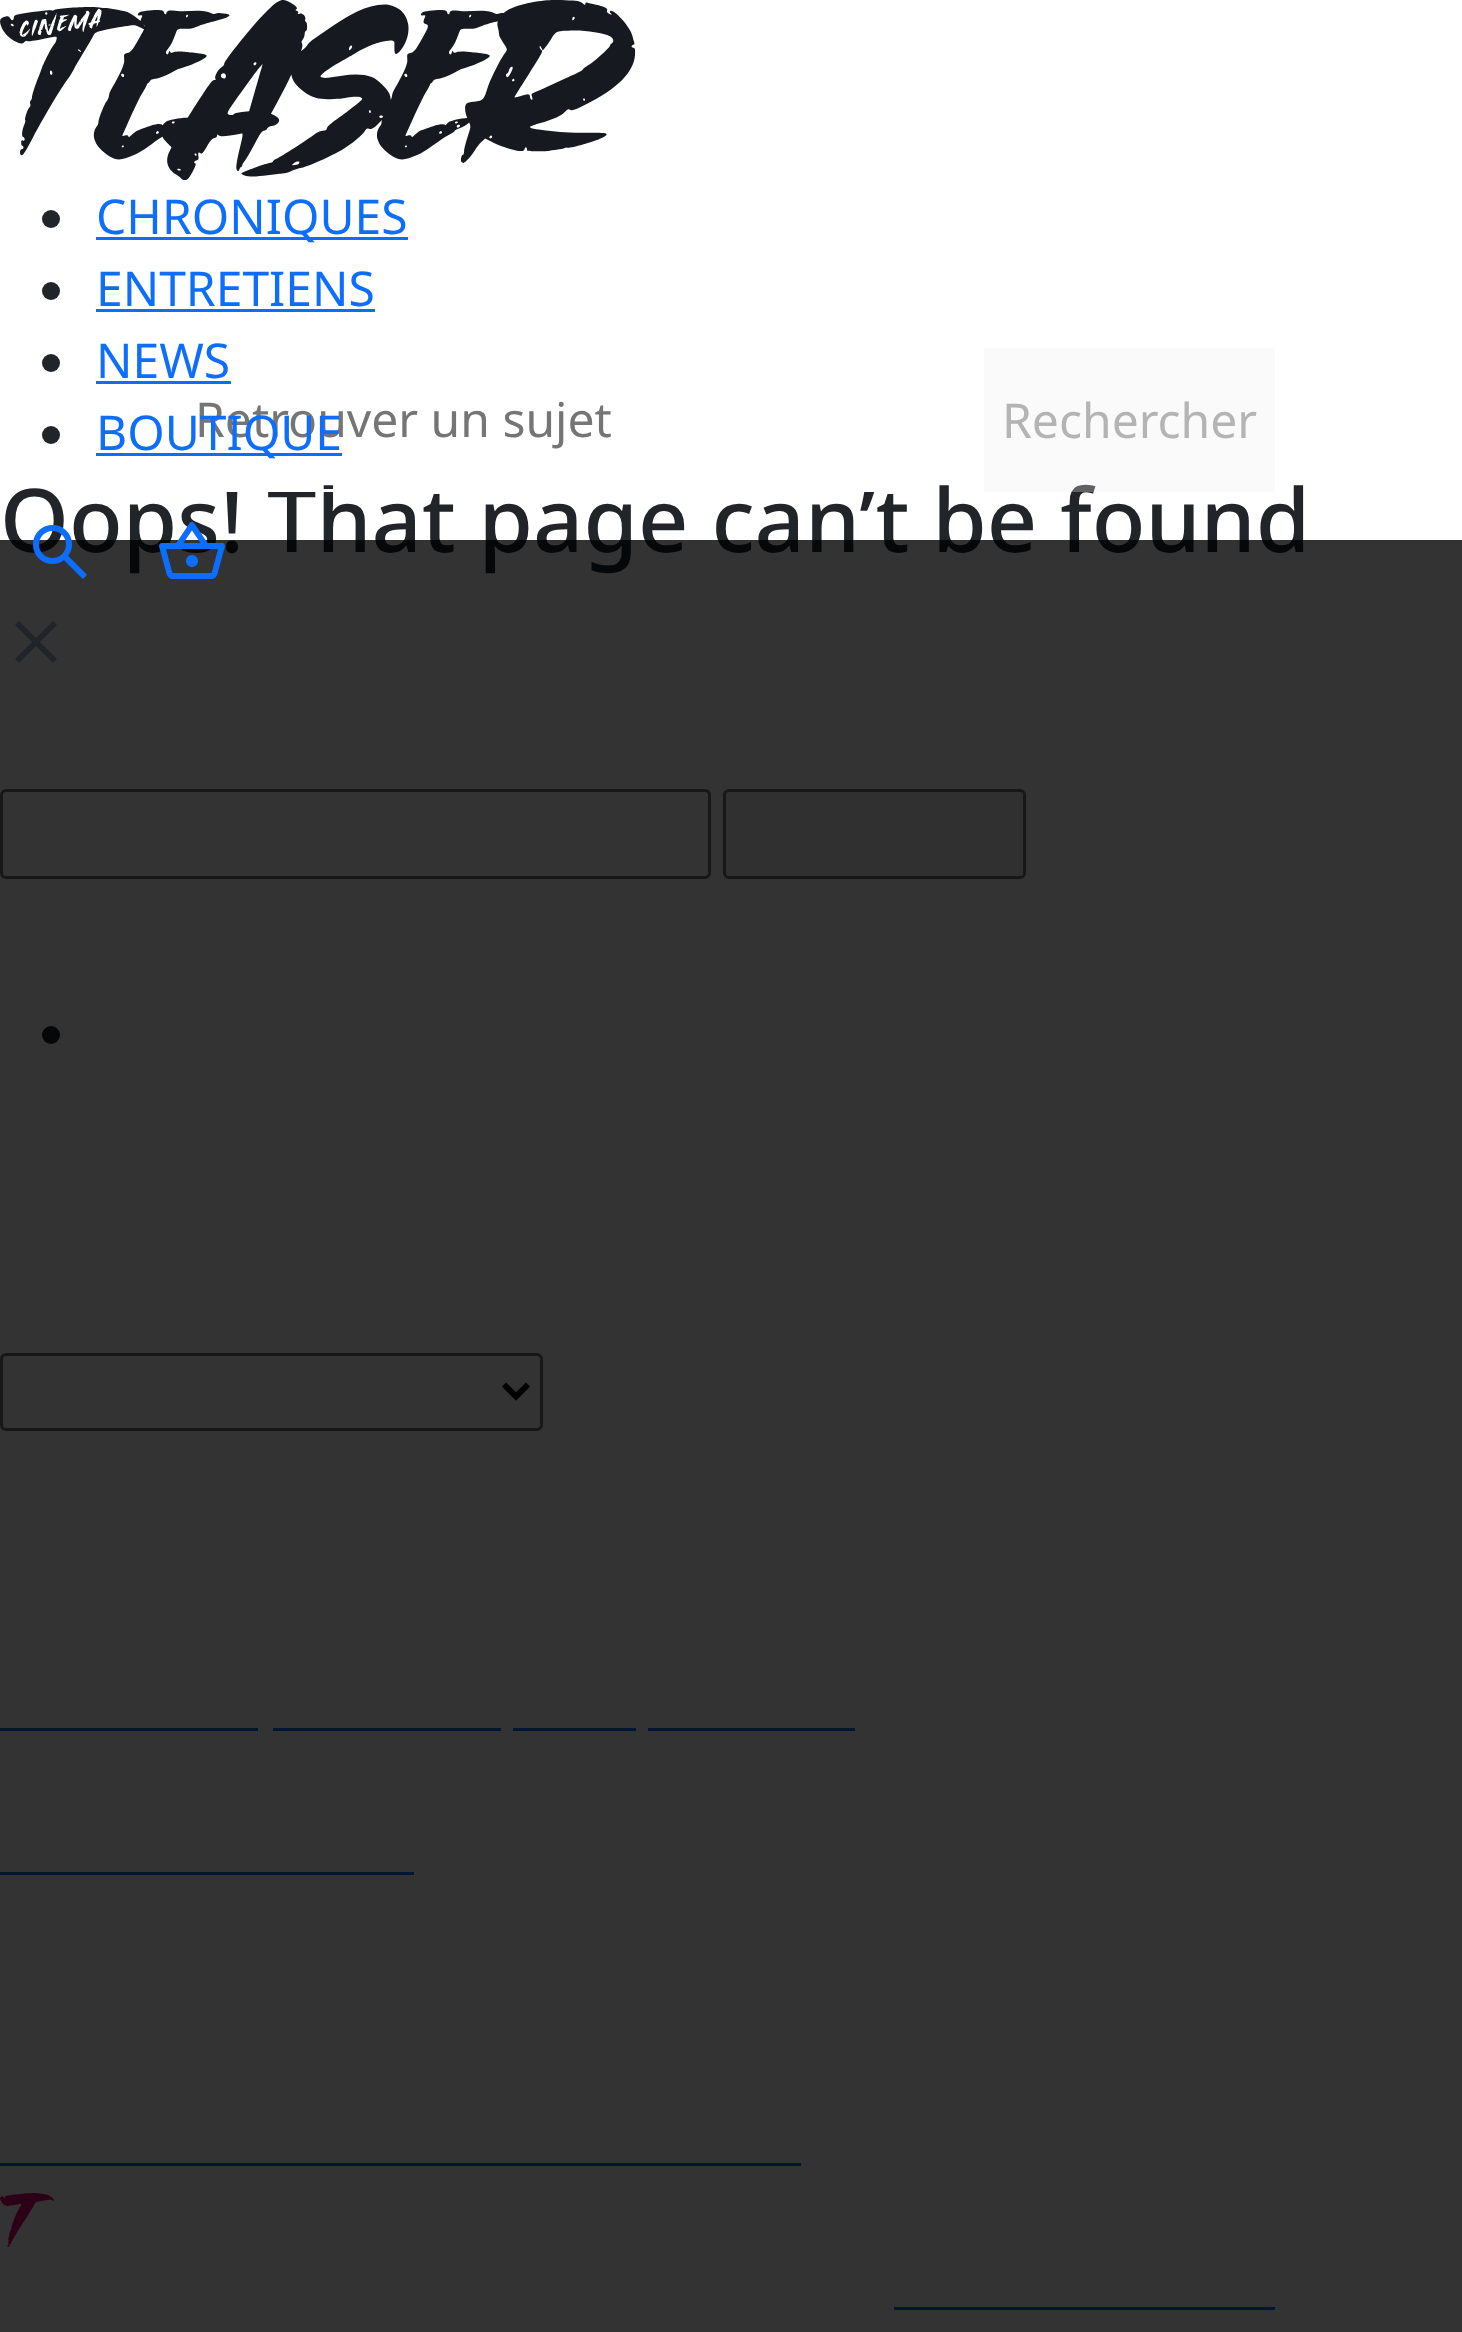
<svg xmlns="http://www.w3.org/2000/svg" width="1462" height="2332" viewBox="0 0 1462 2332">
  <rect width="100%" height="100%" fill="#fff"/>
  <image x="0" y="0" width="636" height="180" href="img/1.png"/>
  <circle cx="51" cy="219" r="9" fill="#212529"/>
  <path d="M96 237h312v3H96z" fill="#0d6efd"/>
  <circle cx="51" cy="291" r="9" fill="#212529"/>
  <path d="M96 309h279v3H96z" fill="#0d6efd"/>
  <circle cx="51" cy="363" r="9" fill="#212529"/>
  <path d="M96 381h135v3H96z" fill="#0d6efd"/>
  <circle cx="51" cy="435" r="9" fill="#212529"/>
  <path d="M96 453h246v3H96z" fill="#0d6efd"/>
  <rect x="1.5" y="790.5" width="708" height="87" rx="4.5" fill="none" stroke="#767676" stroke-width="3"/>
  <rect x="724.5" y="790.5" width="300" height="87" rx="4.5" fill="#efefef" stroke="#767676" stroke-width="3"/>
  <circle cx="51" cy="1035" r="9" fill="#212529"/>
  <rect x="1.5" y="1354.5" width="540" height="75" rx="4.5" fill="none" stroke="#767676" stroke-width="3"/>
  <path d="M504 1384.5L516 1396.5L528 1384.5" fill="none" stroke="#000" stroke-width="6"/>
  <path d="M0 1728h258v3H0z" fill="#0d6efd"/>
  <path d="M273 1728h228v3H273z" fill="#0d6efd"/>
  <path d="M513 1728h123v3H513z" fill="#0d6efd"/>
  <path d="M648 1728h207v3H648z" fill="#0d6efd"/>
  <path d="M0 1872h414v3H0z" fill="#0d6efd"/>
  <path d="M0 2163h801v3H0z" fill="#0d6efd"/>
  <image x="0" y="2193" width="54" height="54" href="img/4.png"/>
  <path d="M894 2307h381v3H894z" fill="#0d6efd"/>
  <g font-family="Noto Sans" font-size="48" fill="#0d6efd">
    <text x="96" y="234">CHRONIQUES</text>
    <text x="96" y="306">ENTRETIENS</text>
    <text x="96" y="378">NEWS</text>
  </g>
  <text x="195" y="437" font-family="Noto Sans" font-size="48" fill="#757575">Retrouver un sujet</text>
  <text x="96" y="450" font-family="Noto Sans" font-size="48" fill="#0d6efd">BOUTIQUE</text>
  <text x="0" y="552" font-family="Noto Sans" font-size="88" font-weight="500" fill="#212529">Oops! That page can’t be found</text>
  <path d="M0 540h1462v1792H0z" fill="#000000cc"/>
  <path d="M19 663L15 659L32 642L15 625L19 621L36 638L53 621L57 625L40 642L57 659L53 663L36 646Z" fill="#212529"/>
  <image x="159" y="522" width="66" height="57" href="img/3.png"/>
  <image x="33" y="525" width="54" height="54" href="img/2.png"/>
  <path d="M984 348h291v144H984z" fill="#efefef4d"/>
  <text x="1002" y="438" font-family="Noto Sans" font-size="48" fill="#b4b4b4">Rechercher</text>
  <path d="M226 489h649v3H226z" fill="#fff"/>
</svg>
